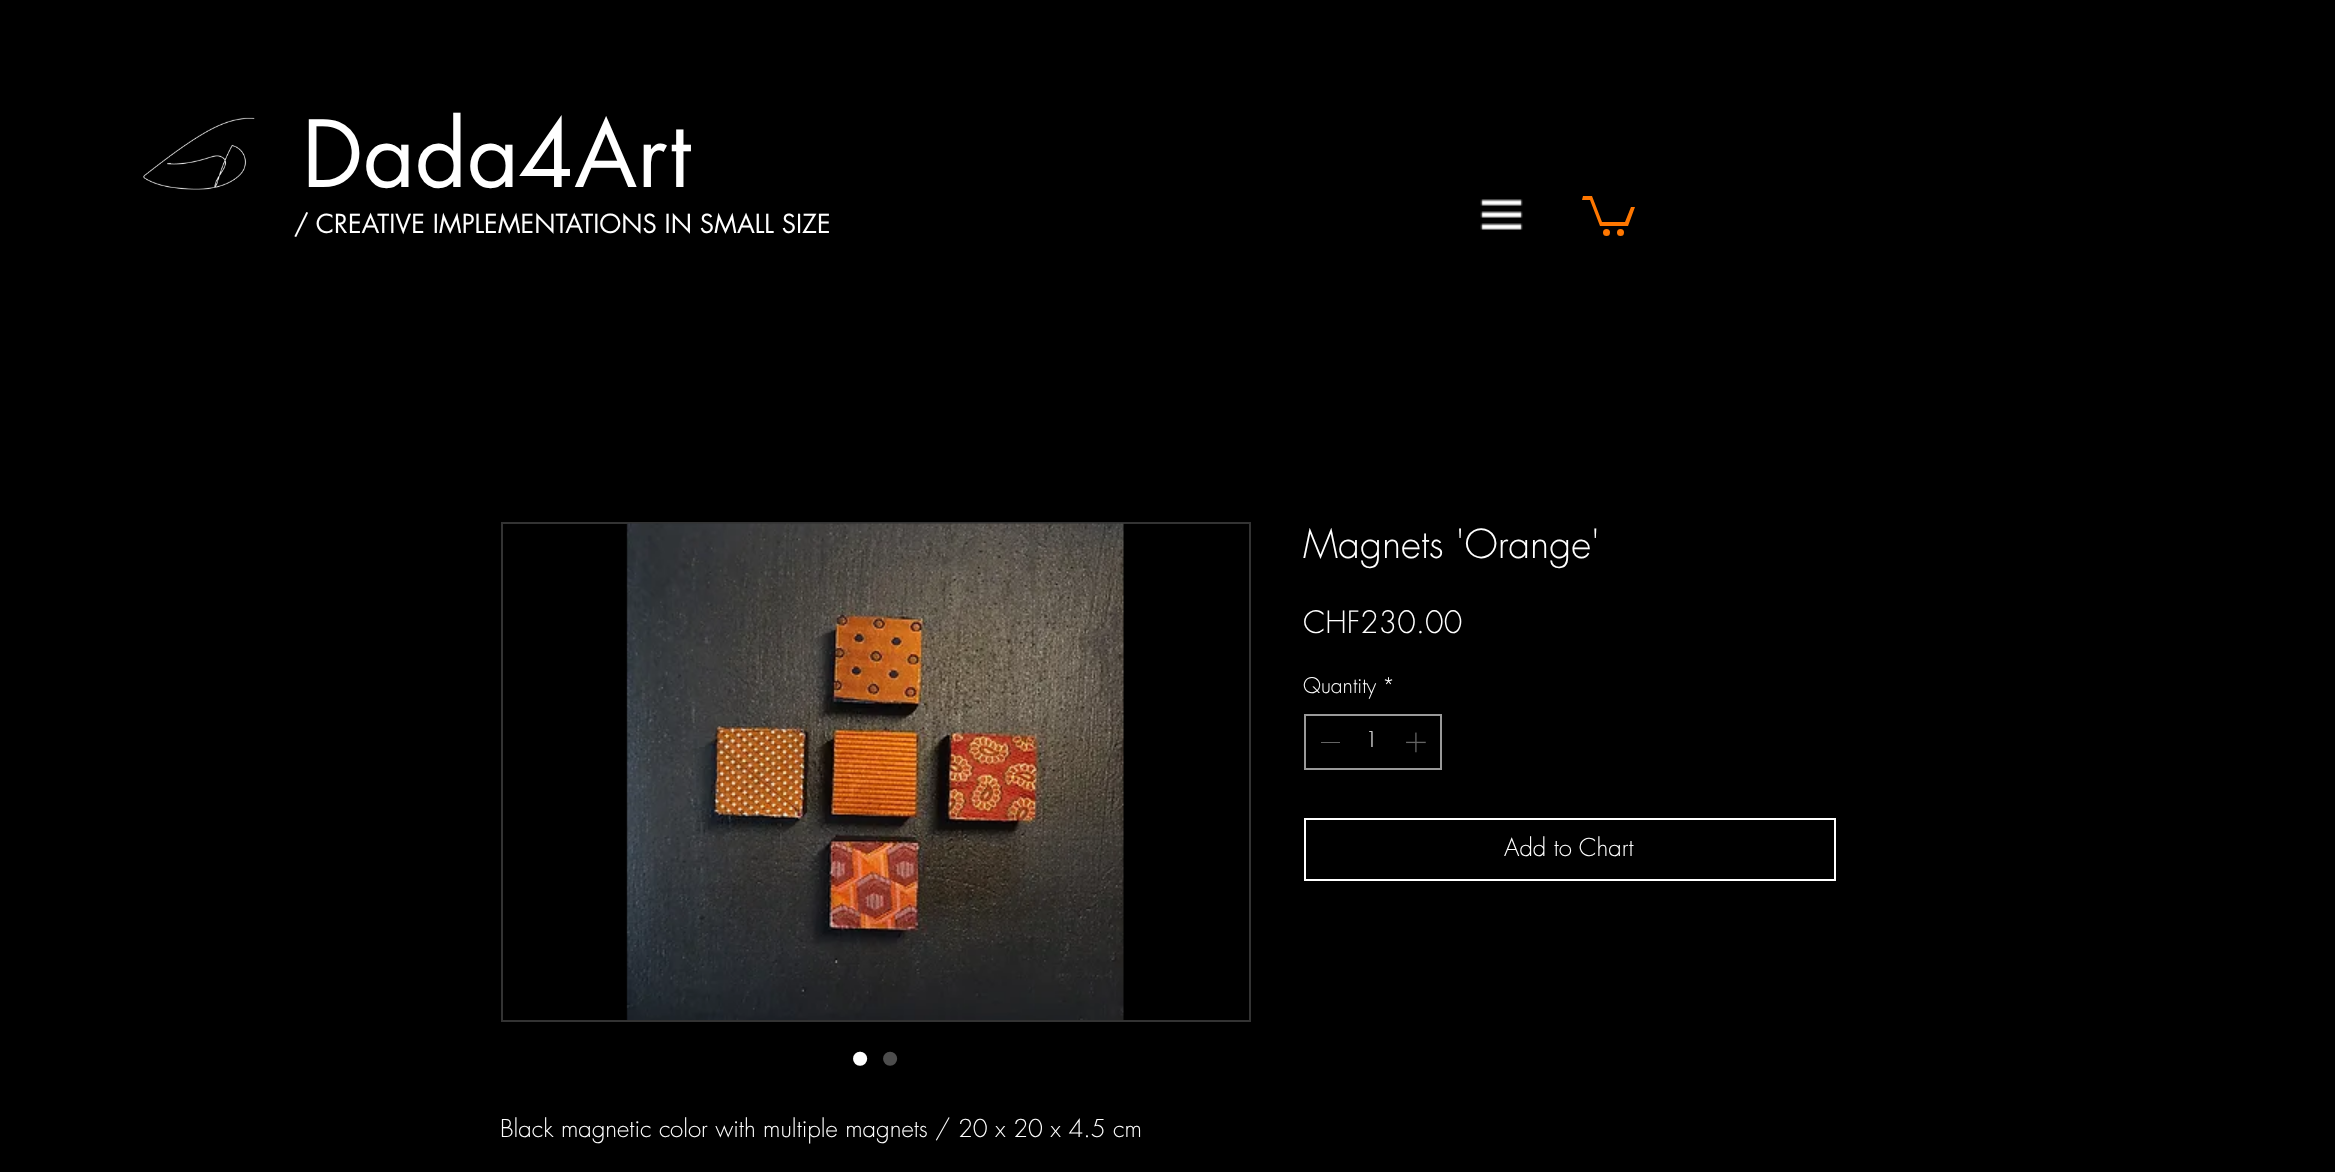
<svg xmlns="http://www.w3.org/2000/svg" width="2335" height="1172" viewBox="0 0 2335 1172">
  <rect width="100%" height="100%" fill="#000"/>
  <image x="143" y="117" width="112" height="73" href="img/1.png"/>
  <image x="1480" y="199" width="43" height="31" href="img/2.png"/>
  <path d="M1635 207L1628 226H1600L1590 200H1582L1583 196H1592L1602 222H1625L1631 207" fill="#f70"/>
  <circle cx="1620.5" cy="232.5" r="3.5" fill="#f70"/>
  <circle cx="1606.5" cy="232.5" r="3.5" fill="#f70"/>
  <path d="M1305 715h136v54H1305z" fill="none" stroke="#999" stroke-width="2"/>
  <path d="M1321 742h19v1H1321z" fill="#646464"/>
  <image x="1406" y="732" width="20" height="21" href="img/3.png"/>
  <path d="M1305 819h530v61H1305z" fill="none" stroke="#fff" stroke-width="2"/>
  <path d="M502 523h748v498H502z" fill="none" stroke="#333" stroke-width="2"/>
  <image x="626" y="523" width="498" height="497" href="img/4.png"/>
  <text x="302" y="187" font-family="futura" font-size="90" fill="#fff">Dada4Art</text>
  <text x="294" y="233" font-family="futura" font-size="25.5" fill="#fff">/ CREATIVE IMPLEMENTATIONS IN SMALL SIZE</text>
  <text x="1303" y="558" font-family="futura" font-size="39" font-weight="300" fill="#fff">Magnets 'Orange'</text>
  <text x="1303" y="633" font-family="futura" font-size="30" font-weight="300" fill="#fff">CHF230.00</text>
  <g font-family="futura" font-size="21" font-weight="300" fill="#fff">
    <text x="1303" y="693">Quantity</text>
    <text x="1382" y="693">*</text>
    <text x="1365" y="747">1</text>
  </g>
  <text x="1504" y="856" font-family="futura" font-size="24" font-weight="300" fill="#fff">Add to Chart</text>
  <text x="851" y="1076" font-family="Liberation Sans" font-size="52" fill="#fff">•</text>
  <text x="881" y="1076" font-family="Liberation Sans" font-size="52" fill="#4d4d4d">•</text>
  <text x="500" y="1137" font-family="futura" font-size="24" font-weight="300" fill="#fff">Black magnetic color with multiple magnets / 20 x 20 x 4.5 cm</text>
</svg>
